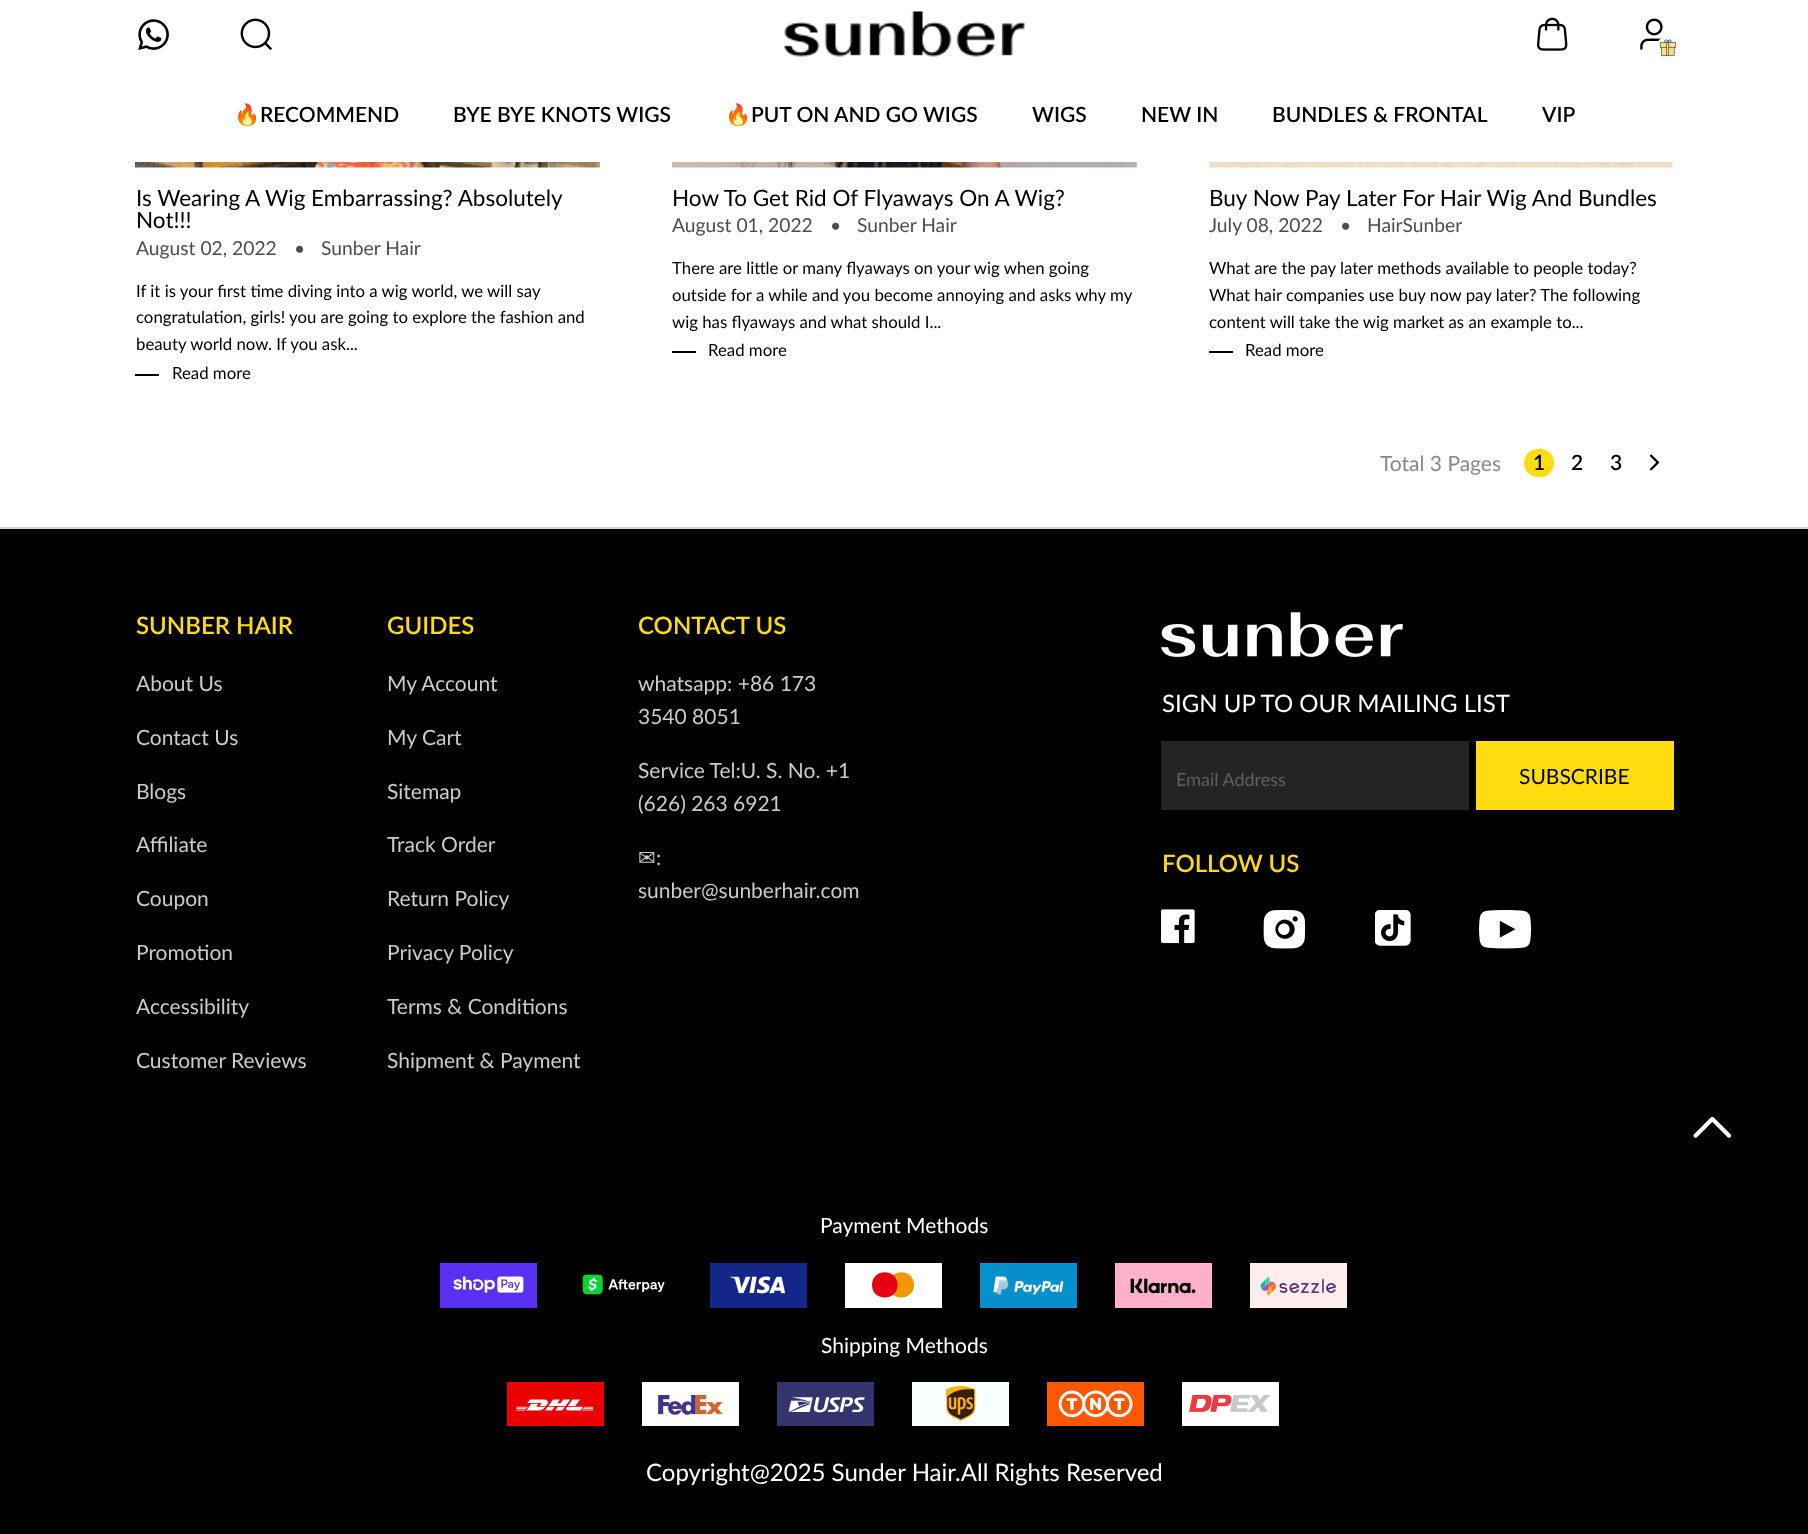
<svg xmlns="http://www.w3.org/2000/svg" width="1808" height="1534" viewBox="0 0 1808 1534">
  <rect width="100%" height="100%" fill="#fff"/>
  <image x="138" y="19" width="31" height="32" href="img/1.png"/>
  <image x="240" y="18" width="32" height="32" href="img/2.png"/>
  <image x="784" y="11" width="241" height="46" href="img/3.png"/>
  <image x="1537" y="17" width="31" height="34" href="img/4.png"/>
  <image x="1640" y="18" width="23" height="32" href="img/5.png"/>
  <image x="1656" y="36" width="24" height="24" href="img/6.png"/>
  <image x="135" y="162" width="465" height="6" href="img/7.png"/>
  <path d="M135 374h24v2H135z" fill="#000"/>
  <image x="672" y="162" width="465" height="6" href="img/8.png"/>
  <path d="M672 351h24v2H672z" fill="#000"/>
  <image x="1209" y="162" width="464" height="6" href="img/9.png"/>
  <path d="M1209 351h24v2H1209z" fill="#000"/>
  <rect x="1524" y="449" width="30" height="28" rx="14" fill="#ffdc0d"/>
  <image x="1650" y="454" width="9" height="17" href="img/10.png"/>
  <path d="M0 529h1808v1005H0z" fill="#000"/>
  <path d="M0 527h1808v2H0z" fill="#d2d5d9"/>
  <image x="1161" y="612" width="242" height="45" href="img/11.png"/>
  <path d="M1161 741h308v69H1161z" fill="#242424"/>
  <path d="M1476 741h198v69H1476z" fill="#ffdc0d"/>
  <image x="1161" y="909" width="34" height="35" href="img/12.png"/>
  <image x="1263" y="910" width="42" height="39" href="img/13.png"/>
  <image x="1375" y="910" width="36" height="36" href="img/14.png"/>
  <image x="1479" y="910" width="53" height="39" href="img/15.png"/>
  <image x="440" y="1263" width="97" height="45" href="img/16.png"/>
  <image x="582" y="1274" width="83" height="21" href="img/17.png"/>
  <image x="710" y="1263" width="97" height="45" href="img/18.png"/>
  <path d="M845 1263h97v45H845z" fill="#fff"/>
  <path d="M888.5 1285C888.5 1302 914.5 1301.5 914 1284.5C913.5 1268 888.5 1268 888.5 1285Z" fill="#f29700"/>
  <path d="M872 1285C872 1302 898 1301.5 897.5 1284.5C897 1268 872 1268 872 1285Z" fill="#e50113"/>
  <image x="980" y="1263" width="97" height="45" href="img/19.png"/>
  <image x="1115" y="1263" width="97" height="45" href="img/20.png"/>
  <image x="1250" y="1263" width="97" height="45" href="img/21.png"/>
  <image x="507" y="1382" width="97" height="44" href="img/22.png"/>
  <image x="642" y="1382" width="97" height="44" href="img/23.png"/>
  <image x="777" y="1382" width="97" height="44" href="img/24.png"/>
  <image x="912" y="1382" width="97" height="44" href="img/25.png"/>
  <image x="1047" y="1382" width="97" height="44" href="img/26.png"/>
  <image x="1182" y="1382" width="97" height="44" href="img/27.png"/>
  <image x="1693" y="1116" width="39" height="22" href="img/28.png"/>
  <text x="234" y="122" font-family="Noto Color Emoji" font-size="21" font-weight="bold" fill="#000">🔥</text>
  <g font-family="Lato" font-size="21" font-weight="600" fill="#000">
    <text x="260" y="122">RECOMMEND</text>
    <text x="453" y="122">BYE BYE KNOTS WIGS</text>
  </g>
  <text x="725" y="122" font-family="Noto Color Emoji" font-size="21" font-weight="bold" fill="#000">🔥</text>
  <g font-family="Lato" font-size="21" font-weight="600" fill="#000">
    <text x="751" y="122">PUT ON AND GO WIGS</text>
    <text x="1032" y="122">WIGS</text>
    <text x="1141" y="122">NEW IN</text>
    <text x="1272" y="122">BUNDLES &amp; FRONTAL</text>
    <text x="1542" y="122">VIP</text>
  </g>
  <g font-family="Lato" font-size="22.5" fill="#000">
    <text x="136" y="206">Is Wearing A Wig Embarrassing? Absolutely</text>
    <text x="136" y="228">Not!!!</text>
  </g>
  <g font-family="Lato" font-size="19.25" fill="#4d4d4d">
    <text x="136" y="255">August 02, 2022</text>
    <text x="294" y="255">•</text>
    <text x="321" y="255">Sunber Hair</text>
  </g>
  <g font-family="Lato" font-size="16.8" fill="#000">
    <text x="136" y="297">If it is your first time diving into a wig world, we will say</text>
    <text x="136" y="323">congratulation, girls! you are going to explore the fashion and</text>
    <text x="136" y="350">beauty world now. If you ask...</text>
    <text x="172" y="379">Read more</text>
  </g>
  <text x="672" y="206" font-family="Lato" font-size="22.5" fill="#000">How To Get Rid Of Flyaways On A Wig?</text>
  <g font-family="Lato" font-size="19.25" fill="#4d4d4d">
    <text x="672" y="232">August 01, 2022</text>
    <text x="830" y="232">•</text>
    <text x="857" y="232">Sunber Hair</text>
  </g>
  <g font-family="Lato" font-size="16.8" fill="#000">
    <text x="672" y="274">There are little or many flyaways on your wig when going</text>
    <text x="672" y="301">outside for a while and you become annoying and asks why my</text>
    <text x="672" y="328">wig has flyaways and what should I...</text>
    <text x="708" y="356">Read more</text>
  </g>
  <text x="1209" y="206" font-family="Lato" font-size="22.5" fill="#000">Buy Now Pay Later For Hair Wig And Bundles</text>
  <g font-family="Lato" font-size="19.25" fill="#4d4d4d">
    <text x="1209" y="232">July 08, 2022</text>
    <text x="1340" y="232">•</text>
    <text x="1367" y="232">HairSunber</text>
  </g>
  <g font-family="Lato" font-size="16.8" fill="#000">
    <text x="1209" y="274">What are the pay later methods available to people today?</text>
    <text x="1209" y="301">What hair companies use buy now pay later? The following</text>
    <text x="1209" y="328">content will take the wig market as an example to...</text>
    <text x="1245" y="356">Read more</text>
  </g>
  <text x="1380" y="471" font-family="Lato" font-size="21" fill="#888">Total 3 Pages</text>
  <g font-family="Lato" font-size="21" font-weight="600" fill="#000">
    <text x="1533" y="470">1</text>
    <text x="1571" y="470">2</text>
    <text x="1610" y="470">3</text>
  </g>
  <text x="136" y="634" font-family="Lato" font-size="24" font-weight="600" fill="#ffdc0d">SUNBER HAIR</text>
  <g font-family="Lato" font-size="21" fill="#cbcbcb">
    <text x="136" y="691">About Us</text>
    <text x="136" y="745">Contact Us</text>
    <text x="136" y="799">Blogs</text>
    <text x="136" y="852">Affiliate</text>
    <text x="136" y="906">Coupon</text>
    <text x="136" y="960">Promotion</text>
    <text x="136" y="1014">Accessibility</text>
    <text x="136" y="1068">Customer Reviews</text>
  </g>
  <text x="387" y="634" font-family="Lato" font-size="24" font-weight="600" fill="#ffdc0d">GUIDES</text>
  <g font-family="Lato" font-size="21" fill="#cbcbcb">
    <text x="387" y="691">My Account</text>
    <text x="387" y="745">My Cart</text>
    <text x="387" y="799">Sitemap</text>
    <text x="387" y="852">Track Order</text>
    <text x="387" y="906">Return Policy</text>
    <text x="387" y="960">Privacy Policy</text>
    <text x="387" y="1014">Terms &amp; Conditions</text>
    <text x="387" y="1068">Shipment &amp; Payment</text>
  </g>
  <text x="638" y="634" font-family="Lato" font-size="24" font-weight="600" fill="#ffdc0d">CONTACT US</text>
  <g font-family="Lato" font-size="21" fill="#cbcbcb">
    <text x="638" y="691">whatsapp: +86 173</text>
    <text x="638" y="724">3540 8051</text>
    <text x="638" y="778">Service Tel:U. S. No. +1</text>
    <text x="638" y="811">(626) 263 6921</text>
  </g>
  <text x="638" y="865" font-family="DejaVu Sans" font-size="21" fill="#cbcbcb">✉</text>
  <g font-family="Lato" font-size="21" fill="#cbcbcb">
    <text x="656" y="865">:</text>
    <text x="638" y="898">sunber@sunberhair.com</text>
  </g>
  <text x="1162" y="712" font-family="Lato" font-size="24" fill="#fff">SIGN UP TO OUR MAILING LIST</text>
  <text x="1176" y="786" font-family="Lato" font-size="18" fill="#606060">Email Address</text>
  <text x="1519" y="784" font-family="Lato" font-size="21" fill="#000">SUBSCRIBE</text>
  <text x="1162" y="872" font-family="Lato" font-size="24" font-weight="600" fill="#ffdc0d">FOLLOW US</text>
  <g font-family="Lato" font-size="21" fill="#fff">
    <text x="820" y="1233">Payment Methods</text>
    <text x="821" y="1353">Shipping Methods</text>
  </g>
  <text x="646" y="1481" font-family="Lato" font-size="24" fill="#fff">Copyright@2025 Sunder Hair.All Rights Reserved</text>
</svg>
